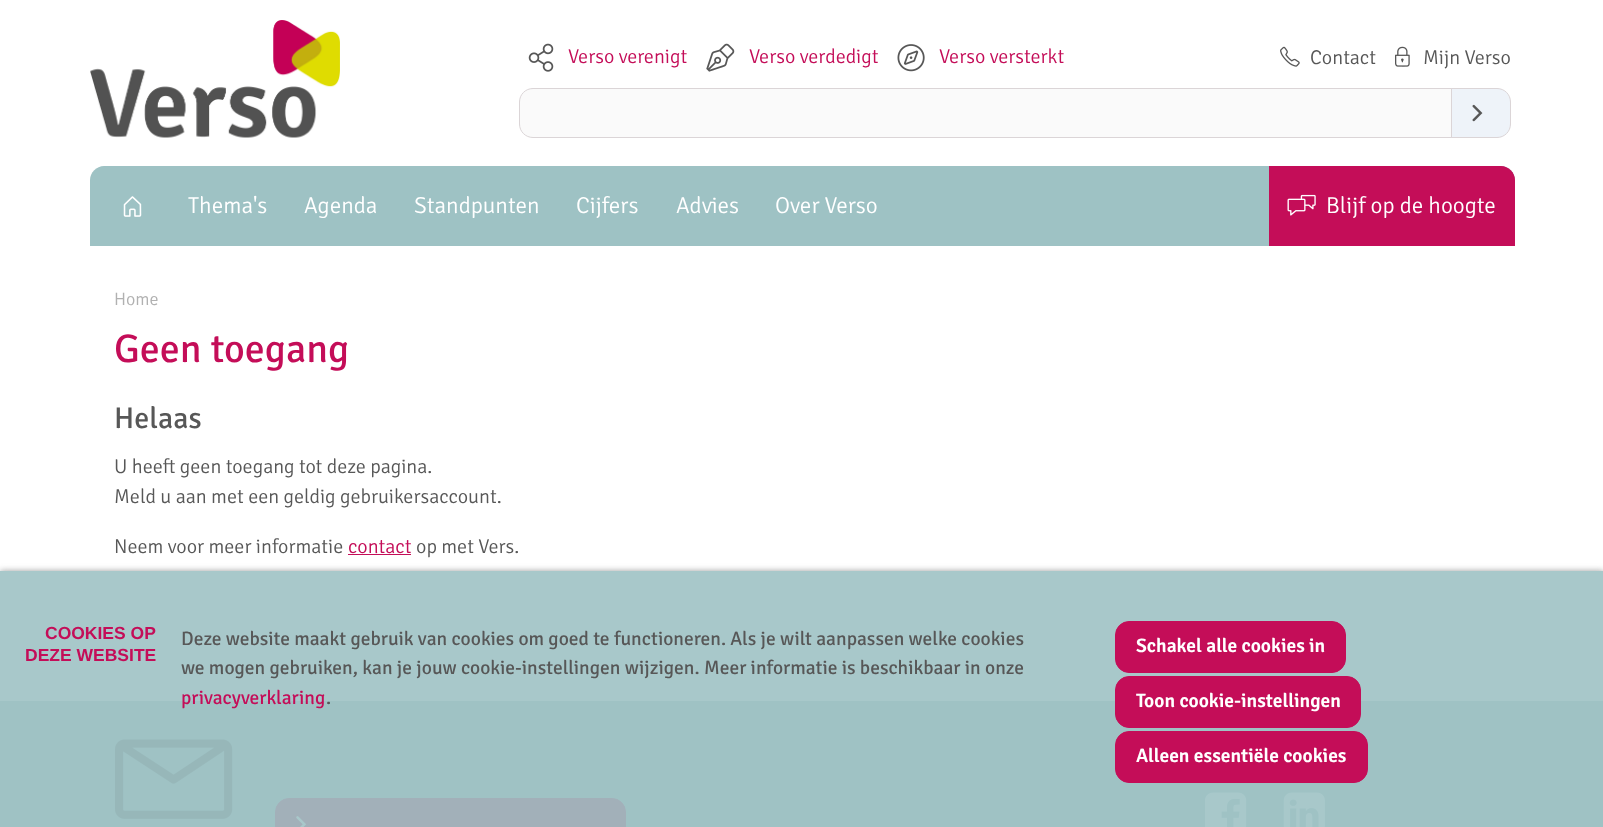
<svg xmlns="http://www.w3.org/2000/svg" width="1603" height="827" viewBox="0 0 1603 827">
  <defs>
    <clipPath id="clip1"><path d="M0 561H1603V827H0ZM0 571H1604V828H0Z" clip-rule="evenodd"/></clipPath>
  </defs>
  <rect width="100%" height="100%" fill="#fff"/>
  <image x="90" y="20" width="250" height="118" href="img/1.png"/>
  <image x="528" y="43" width="26" height="29" href="img/2.png"/>
  <image x="706" y="43" width="29" height="29" href="img/3.png"/>
  <image x="897" y="44" width="28" height="28" href="img/4.png"/>
  <image x="1280" y="46" width="20" height="21" href="img/5.png"/>
  <image x="1395" y="46" width="15" height="21" href="img/6.png"/>
  <path d="M533 88.5H1454.5V137.5H533C525.5 137.5 519.5 131.5 519.5 124V102C519.5 94.5 525.5 88.5 533 88.5Z" fill="#fafafa" stroke="#dbd5d7"/>
  <path d="M1451.5 88.5H1497C1504.5 88.5 1510.5 94.5 1510.5 102V124C1510.5 131.5 1504.5 137.5 1497 137.5H1451.5Z" fill="#eef3f9" stroke="#dbd5d7"/>
  <image x="1472" y="104" width="11" height="18" href="img/7.png"/>
  <path d="M104 166H1501C1508.5 166 1515 172.5 1515 180V246H90V180C90 172.5 96.5 166 104 166Z" fill="#9ec2c4"/>
  <image x="123" y="196" width="19" height="21" href="img/8.png"/>
  <path d="M1269 166H1501C1508.5 166 1515 172.5 1515 180V246H1269Z" fill="#c40d58"/>
  <image x="1287" y="194" width="29" height="22" href="img/9.png"/>
  <path d="M348 554h63v1H348z" fill="#c40d58"/>
  <path d="M0 701h1603v126H0z" fill="#9ec2c4"/>
  <image x="115" y="739" width="118" height="80" href="img/10.png"/>
  <rect x="275.5" y="798.5" width="350" height="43" rx="13.5" fill="#c40d58" stroke="#c40d58"/>
  <image x="296" y="816" width="11" height="11" href="img/11.png"/>
  <image x="1205" y="792" width="42" height="35" href="img/12.png"/>
  <image x="1283" y="792" width="42" height="35" href="img/13.png"/>
  <g clip-path="url(#clip1)">
    <path d="M0 571h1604v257H0z" fill="#8c8c8cd9" filter="blur(3px)"/>
  </g>
  <path d="M0 571h1603v256H0z" fill="#9ec2c4e6"/>
  <rect x="1115.5" y="621.5" width="230" height="51" rx="13.5" fill="#c40d58" stroke="#c40d58"/>
  <rect x="1115.5" y="676.5" width="245" height="51" rx="13.5" fill="#c40d58" stroke="#c40d58"/>
  <rect x="1115.5" y="731.5" width="252" height="51" rx="13.5" fill="#c40d58" stroke="#c40d58"/>
  <g font-family="Signika" font-size="20" font-weight="300" fill="#c40d58">
    <text x="568" y="63">Verso verenigt</text>
    <text x="749" y="63">Verso verdedigt</text>
    <text x="939" y="63">Verso versterkt</text>
  </g>
  <g font-family="Signika" font-size="20" font-weight="300" fill="#575757">
    <text x="1310" y="64">Contact</text>
    <text x="1423" y="64">Mijn Verso</text>
  </g>
  <g font-family="Signika" font-size="23" font-weight="300" fill="#fff">
    <text x="188" y="213">Thema's</text>
    <text x="304" y="213">Agenda</text>
    <text x="414" y="213">Standpunten</text>
    <text x="576" y="213">Cijfers</text>
    <text x="676" y="213">Advies</text>
    <text x="775" y="213">Over Verso</text>
    <text x="1326" y="213">Blijf op de hoogte</text>
  </g>
  <text x="114" y="305" font-family="Signika" font-size="18" font-weight="300" fill="#b1b1b1">Home</text>
  <text x="114" y="362" font-family="Signika" font-size="40" fill="#c40d58">Geen toegang</text>
  <text x="114" y="428" font-family="Signika" font-size="30" fill="#575757">Helaas</text>
  <g font-family="Signika" font-size="20" font-weight="300" fill="#575757">
    <text x="114" y="473">U heeft geen toegang tot deze pagina.</text>
    <text x="114" y="503">Meld u aan met een geldig gebruikersaccount.</text>
    <text x="114" y="553">Neem voor meer informatie</text>
  </g>
  <text x="348" y="553" font-family="Signika" font-size="20" font-weight="300" fill="#c40d58">contact</text>
  <text x="416" y="553" font-family="Signika" font-size="20" font-weight="300" fill="#575757">op met Vers.</text>
  <g font-family="Liberation Sans" font-size="17.5" font-weight="bold" fill="#c40d58">
    <text x="45" y="639">COOKIES OP</text>
    <text x="25" y="661">DEZE WEBSITE</text>
  </g>
  <g font-family="Signika" font-size="19.5" fill="#575757">
    <text x="181" y="645">Deze website maakt gebruik van cookies om goed te functioneren. Als je wilt aanpassen welke cookies</text>
    <text x="181" y="674">we mogen gebruiken, kan je jouw cookie-instellingen wijzigen. Meer informatie is beschikbaar in onze</text>
  </g>
  <text x="181" y="704" font-family="Signika" font-size="19.5" fill="#c40d58">privacyverklaring</text>
  <text x="326" y="704" font-family="Signika" font-size="19.5" fill="#575757">.</text>
  <g font-family="Signika" font-size="19.5" font-weight="600" fill="#fff">
    <text x="1136" y="652">Schakel alle cookies in</text>
    <text x="1136" y="707">Toon cookie-instellingen</text>
    <text x="1136" y="762">Alleen essentiële cookies</text>
  </g>
</svg>
